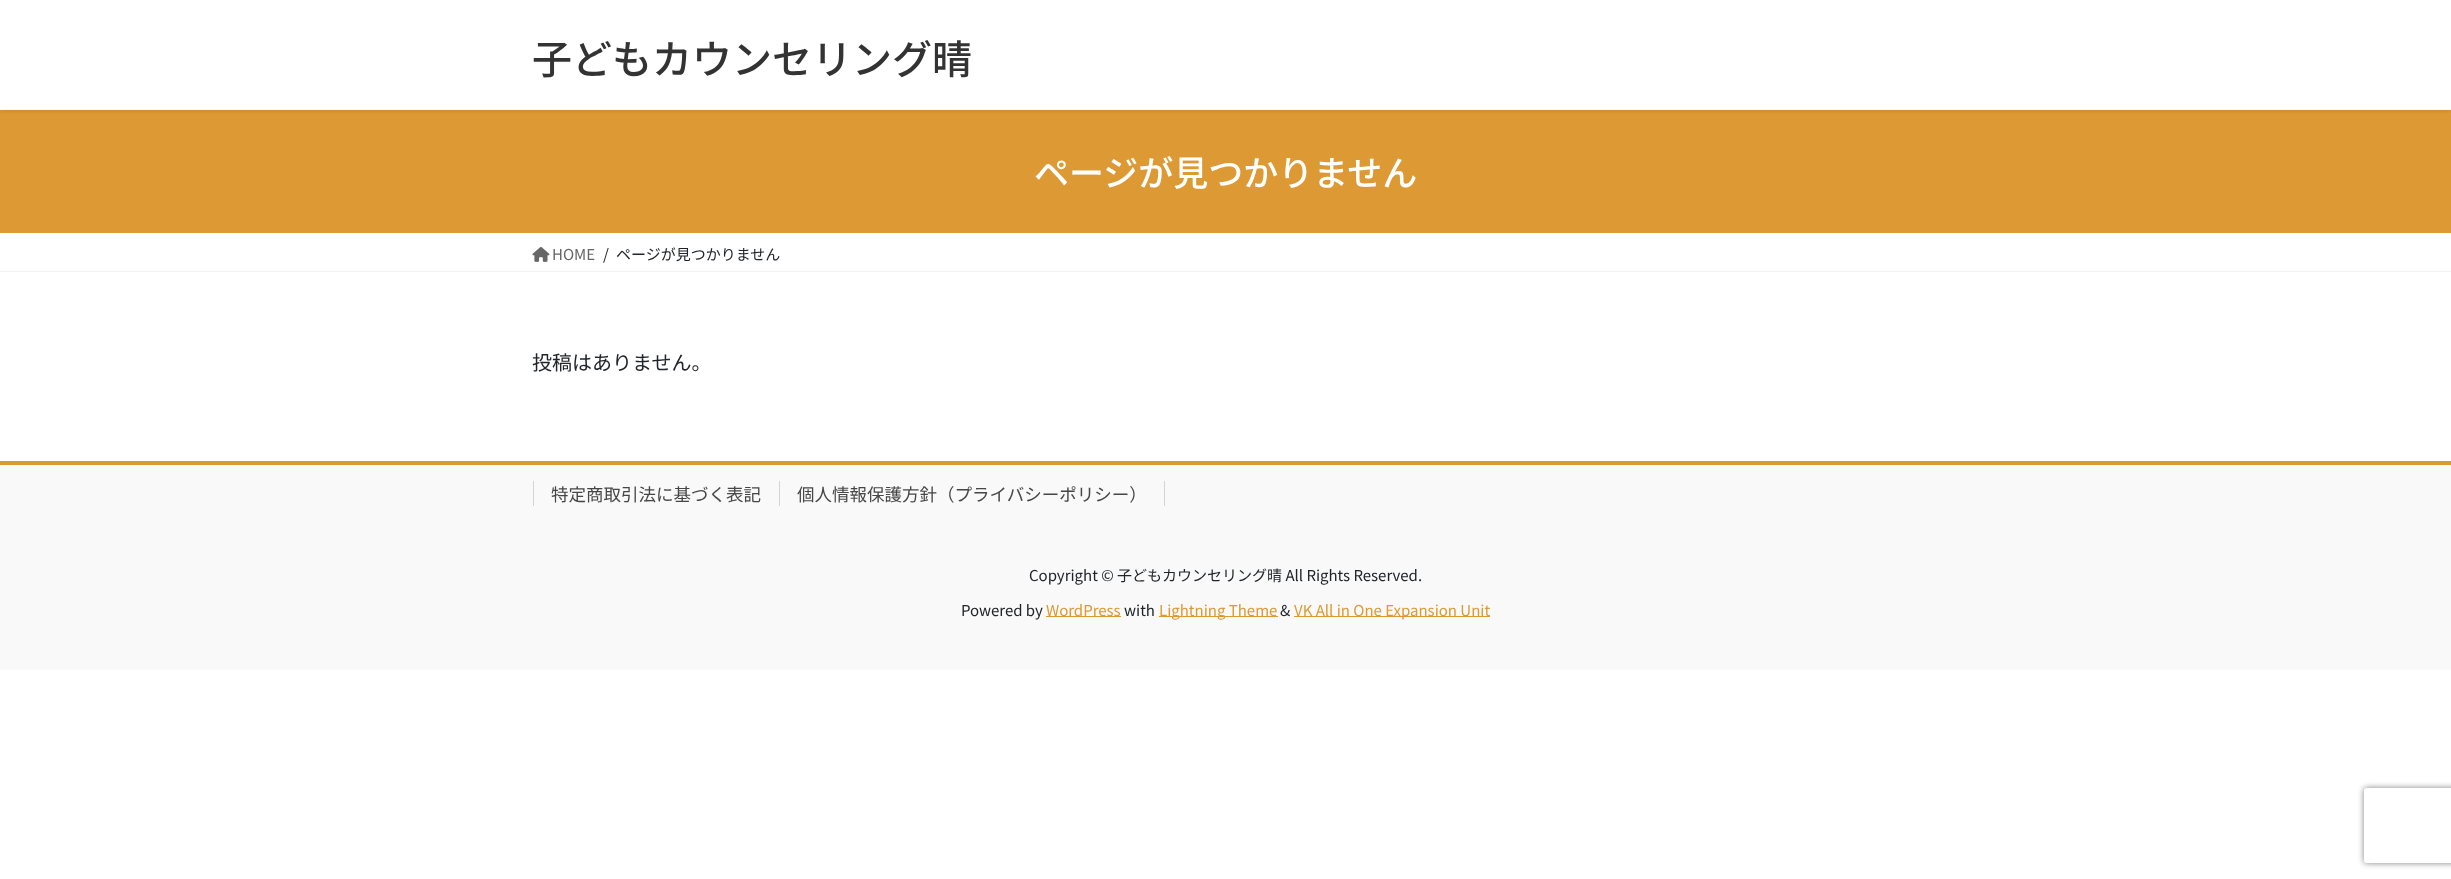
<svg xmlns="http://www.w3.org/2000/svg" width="2451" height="879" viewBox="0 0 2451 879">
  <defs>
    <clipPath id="clip1"><path d="M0 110h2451v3H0z"/></clipPath>
    <clipPath id="clip2"><path d="M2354 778H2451V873H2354ZM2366.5 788H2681.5C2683 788 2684 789 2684 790.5V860.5C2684 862 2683 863 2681.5 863H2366.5C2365 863 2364 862 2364 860.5V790.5C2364 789 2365 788 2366.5 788Z" clip-rule="evenodd"/></clipPath>
  </defs>
  <rect width="100%" height="100%" fill="#fff"/>
  <path d="M0 110h2451v123H0z" fill="#d93"/>
  <g clip-path="url(#clip1)">
    <path d="M0 1h2451v110H0z" fill="#0000001a" filter="blur(2px)"/>
  </g>
  <path d="M0 271h2451v1H0z" fill="#f2f2f2"/>
  <image x="532" y="246" width="18" height="16" href="img/1.png"/>
  <path d="M0 465h2451v205H0z" fill="#f9f9f9"/>
  <path d="M0 461h2451v4H0z" fill="#d93"/>
  <path d="M533 481h1v25H533z" fill="#d4d4d4"/>
  <path d="M1164 481h1v25H1164z" fill="#d4d4d4"/>
  <path d="M779 481h1v25H779z" fill="#d4d4d4"/>
  <path d="M1046 616h75v1H1046z" fill="#d93"/>
  <path d="M1159 616h119v1H1159z" fill="#d93"/>
  <path d="M1294 616h196v1H1294z" fill="#d93"/>
  <g clip-path="url(#clip2)">
    <rect x="2364" y="788" width="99" height="75" rx="2.5" fill="#808080" filter="blur(3px)"/>
  </g>
  <text x="532" y="74" font-family="Noto Sans JP" font-size="40" font-weight="500" fill="#333">子どもカウンセリング晴</text>
  <text x="1034" y="186" font-family="Noto Sans JP" font-size="35" font-weight="500" fill="#fff">ページが見つかりません</text>
  <text x="552" y="260" font-family="Noto Sans JP" font-size="15" fill="#666">HOME</text>
  <g font-family="Noto Sans JP" font-size="15" fill="#212529">
    <text x="603" y="260">/</text>
    <text x="616" y="260">ページが見つかりません</text>
  </g>
  <text x="532" y="370" font-family="Noto Sans JP" font-size="20" fill="#212529">投稿はありません。</text>
  <g font-family="Noto Sans JP" font-size="17.5" fill="#464646">
    <text x="551" y="501">特定商取引法に基づく表記</text>
    <text x="797" y="501">個人情報保護方針（プライバシーポリシー）</text>
  </g>
  <g font-family="Noto Sans JP" font-size="15" fill="#212529">
    <text x="1029" y="581">Copyright © 子どもカウンセリング晴 All Rights Reserved.</text>
    <text x="961" y="616">Powered by</text>
  </g>
  <text x="1046" y="616" font-family="Noto Sans JP" font-size="15" fill="#d93">WordPress</text>
  <text x="1124" y="616" font-family="Noto Sans JP" font-size="15" fill="#212529">with</text>
  <text x="1159" y="616" font-family="Noto Sans JP" font-size="15" fill="#d93">Lightning Theme</text>
  <text x="1280" y="616" font-family="Noto Sans JP" font-size="15" fill="#212529">&amp;</text>
  <text x="1294" y="616" font-family="Noto Sans JP" font-size="15" fill="#d93">VK All in One Expansion Unit</text>
</svg>
